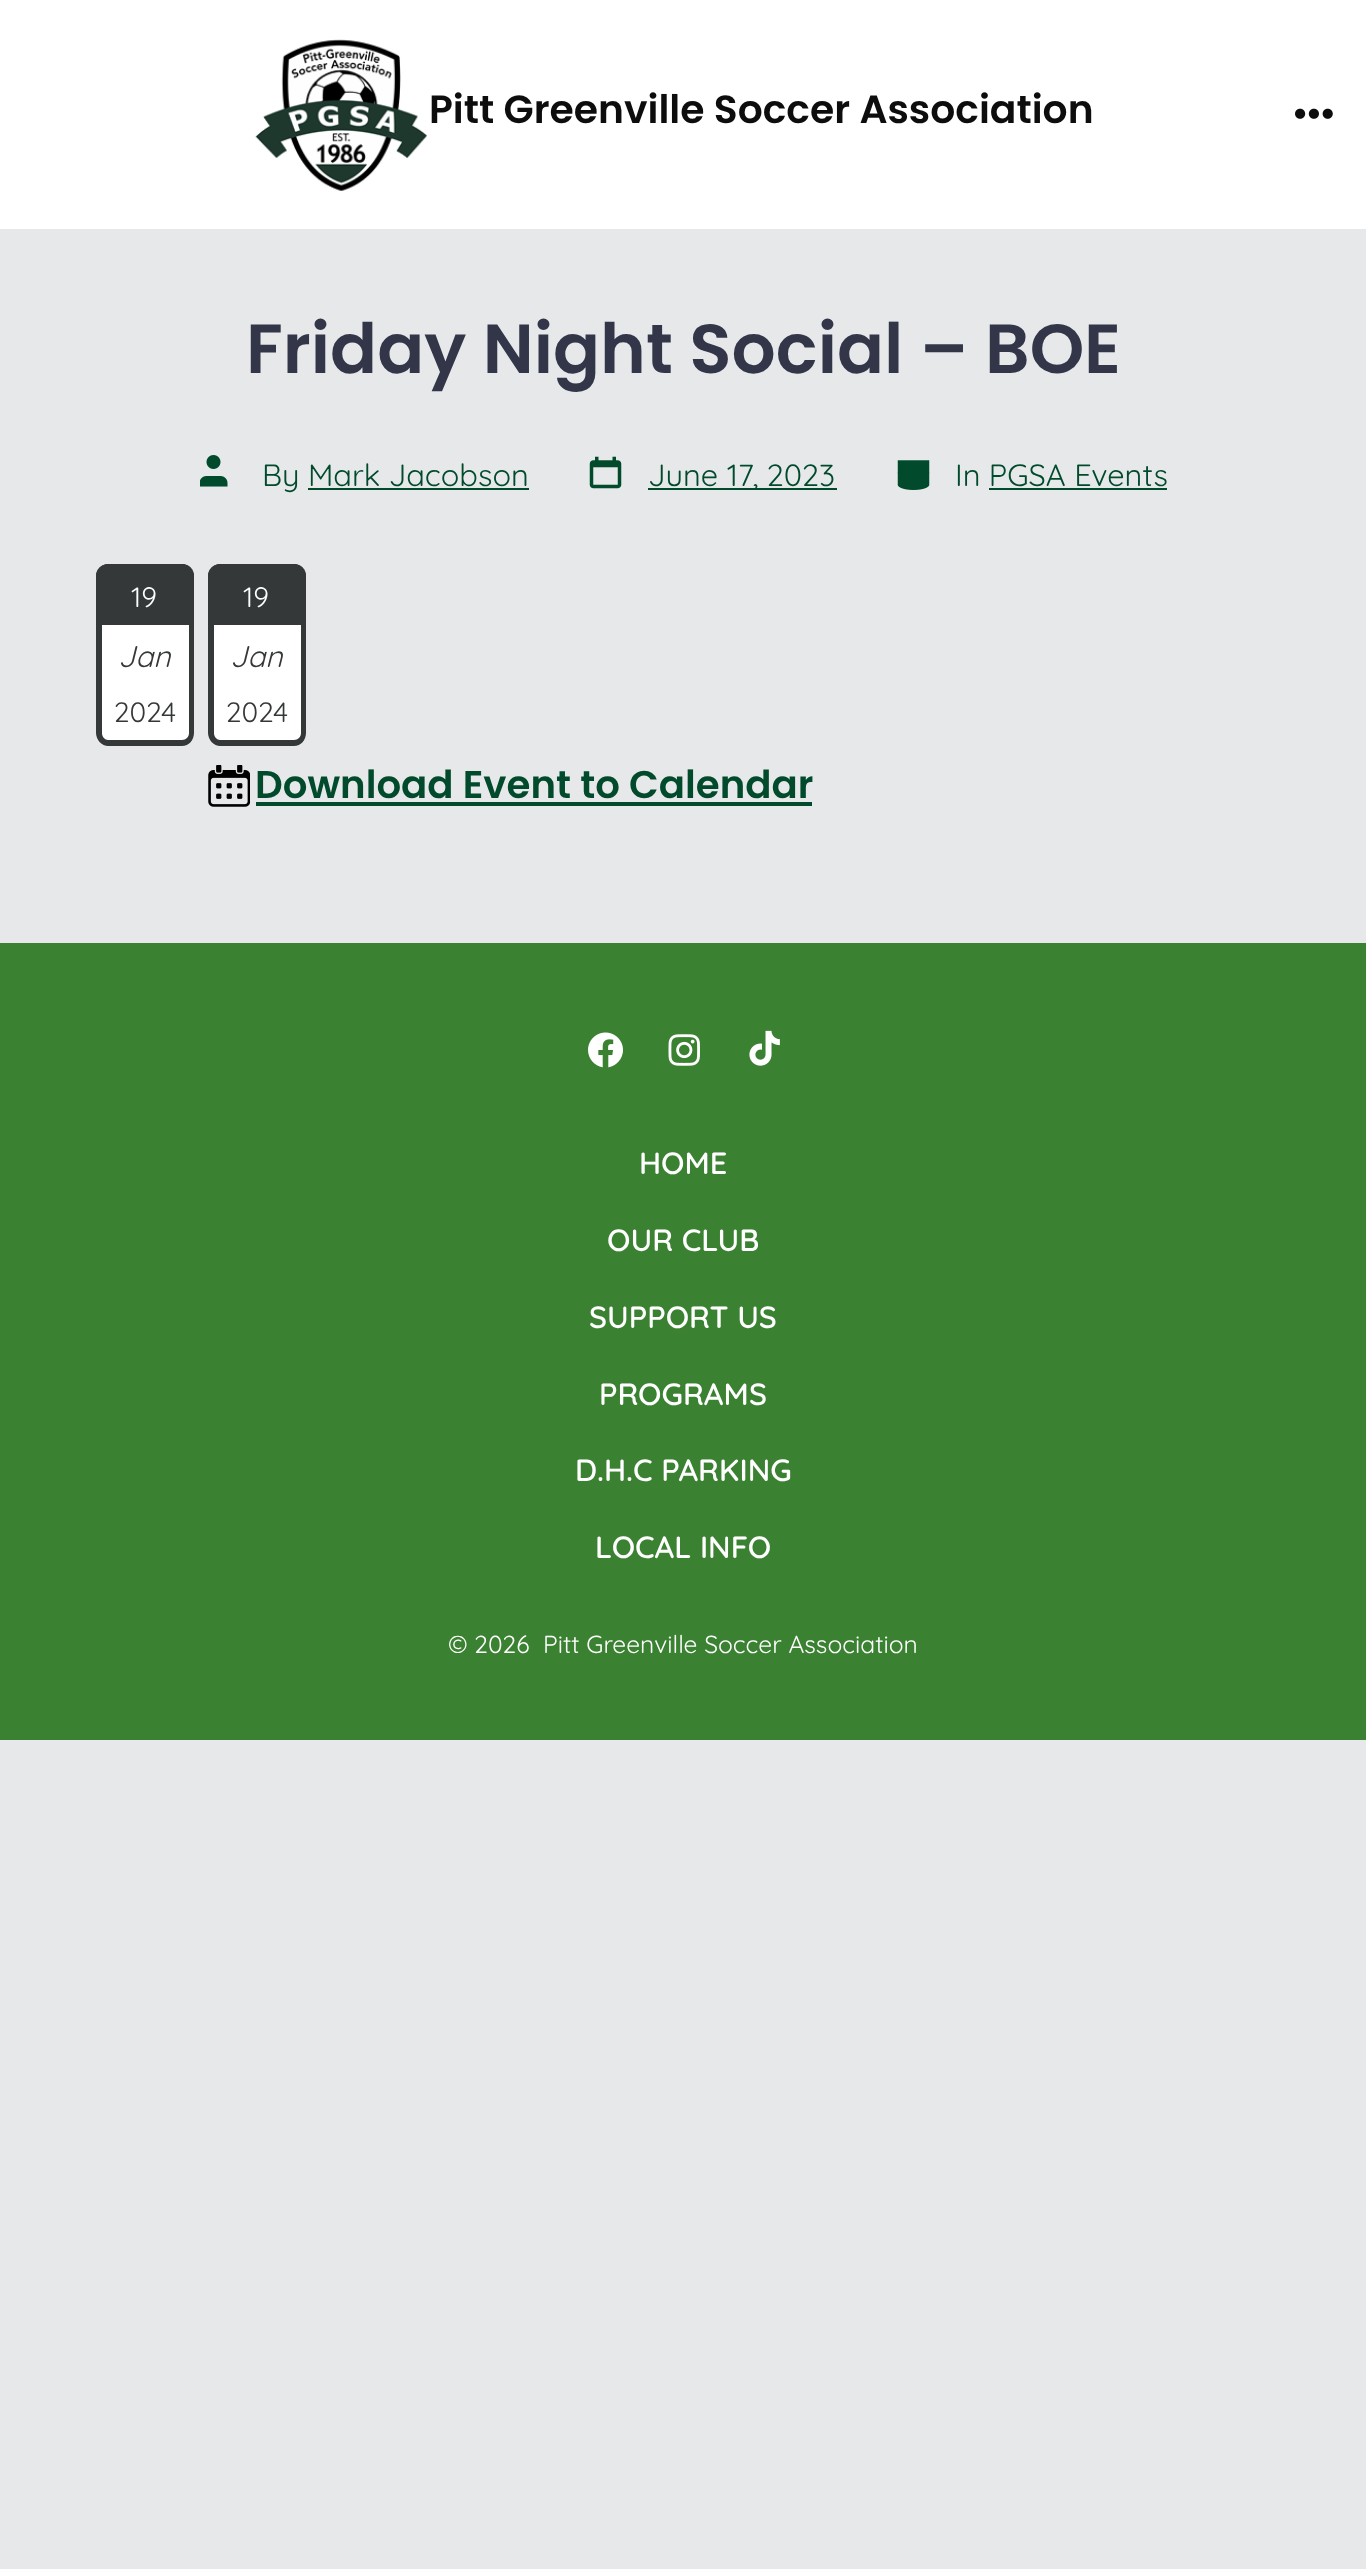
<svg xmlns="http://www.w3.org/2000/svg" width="1366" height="2569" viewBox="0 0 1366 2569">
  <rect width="100%" height="100%" fill="#e6e8ea"/>
  <path d="M0 0h1366v229H0z" fill="#fff"/>
  <image x="255" y="39" width="172" height="152" href="img/1.png"/>
  <image x="1295" y="108" width="38" height="11" href="img/2.png"/>
  <image x="200" y="455" width="28" height="32" href="img/3.png"/>
  <path d="M308 488h221v2H308z" fill="#014b2c"/>
  <image x="589" y="456" width="33" height="33" href="img/4.png"/>
  <path d="M648 488h189v2H648z" fill="#014b2c"/>
  <image x="897" y="460" width="33" height="30" href="img/5.png"/>
  <path d="M989 488h178v2H989z" fill="#014b2c"/>
  <path d="M108 564H182C188.5 564 194 569.5 194 576V625H96V576C96 569.5 101.5 564 108 564Z" fill="#343838"/>
  <path d="M108 564H182C189 564 194 569 194 576V625H96V576C96 569 102 564 108 564ZM108 569H182C186 569 189 572 189 576V625H102V576C102 572 105 569 108 569Z" fill="#343838" fill-rule="evenodd"/>
  <path d="M96 625H194V734C194 740.5 188.5 746 182 746H108C101.5 746 96 740.5 96 734Z" fill="#fff"/>
  <path d="M96 625H194V733C194 740 189 746 182 746H108C102 746 96 740 96 733ZM102 625H189V733C189 737 186 740 182 740H108C105 740 102 737 102 733Z" fill="#343838" fill-rule="evenodd"/>
  <path d="M220 564H294C300.5 564 306 569.5 306 576V625H208V576C208 569.5 213.5 564 220 564Z" fill="#343838"/>
  <path d="M220 564H294C301 564 306 569 306 576V625H208V576C208 569 214 564 220 564ZM220 569H294C298 569 301 572 301 576V625H214V576C214 572 217 569 220 569Z" fill="#343838" fill-rule="evenodd"/>
  <path d="M208 625H306V734C306 740.5 300.5 746 294 746H220C213.5 746 208 740.5 208 734Z" fill="#fff"/>
  <path d="M208 625H306V733C306 740 301 746 294 746H220C214 746 208 740 208 733ZM214 625H301V733C301 737 298 740 294 740H220C217 740 214 737 214 733Z" fill="#343838" fill-rule="evenodd"/>
  <image x="208" y="765" width="42" height="42" href="img/6.png"/>
  <path d="M256 802h556v4H256z" fill="#014b2c"/>
  <path d="M0 943h1366v797H0z" fill="#3b8132"/>
  <image x="588" y="1032" width="35" height="36" href="img/7.png"/>
  <image x="668" y="1034" width="32" height="32" href="img/8.png"/>
  <image x="749" y="1030" width="31" height="36" href="img/9.png"/>
  <text x="429" y="123" font-family="Poppins" font-size="39.25" font-weight="600" fill="#0d0d0d">Pitt Greenville Soccer Association</text>
  <text x="246" y="373" font-family="Poppins" font-size="69.4" font-weight="600" fill="#323648">Friday Night Social – BOE</text>
  <g font-family="Quicksand" font-size="30.75" fill="#014b2c">
    <text x="262" y="486">By Mark Jacobson</text>
    <text x="648" y="486">June 17, 2023</text>
    <text x="955" y="486">In PGSA Events</text>
  </g>
  <text x="131" y="607" font-family="Quicksand" font-size="28" fill="#fff">19</text>
  <text x="118" y="667" font-family="Quicksand" font-size="30" font-style="italic" fill="#343838">Jan</text>
  <text x="114" y="722" font-family="Quicksand" font-size="28" fill="#343838">2024</text>
  <text x="243" y="607" font-family="Quicksand" font-size="28" fill="#fff">19</text>
  <text x="230" y="667" font-family="Quicksand" font-size="30" font-style="italic" fill="#343838">Jan</text>
  <text x="226" y="722" font-family="Quicksand" font-size="28" fill="#343838">2024</text>
  <text x="255" y="798" font-family="Poppins" font-size="38.7" font-weight="600" fill="#014b2c">Download Event to Calendar</text>
  <g font-family="Quicksand" font-size="30.75" font-weight="600" fill="#fff">
    <text x="639" y="1174">HOME</text>
    <text x="607" y="1251">OUR CLUB</text>
    <text x="589" y="1328">SUPPORT US</text>
    <text x="599" y="1405">PROGRAMS</text>
    <text x="575" y="1481">D.H.C PARKING</text>
    <text x="595" y="1558">LOCAL INFO</text>
  </g>
  <g font-family="Quicksand" font-size="24.6" fill="#fff">
    <text x="448" y="1653">© 2026</text>
    <text x="543" y="1653">Pitt Greenville Soccer Association</text>
  </g>
</svg>
